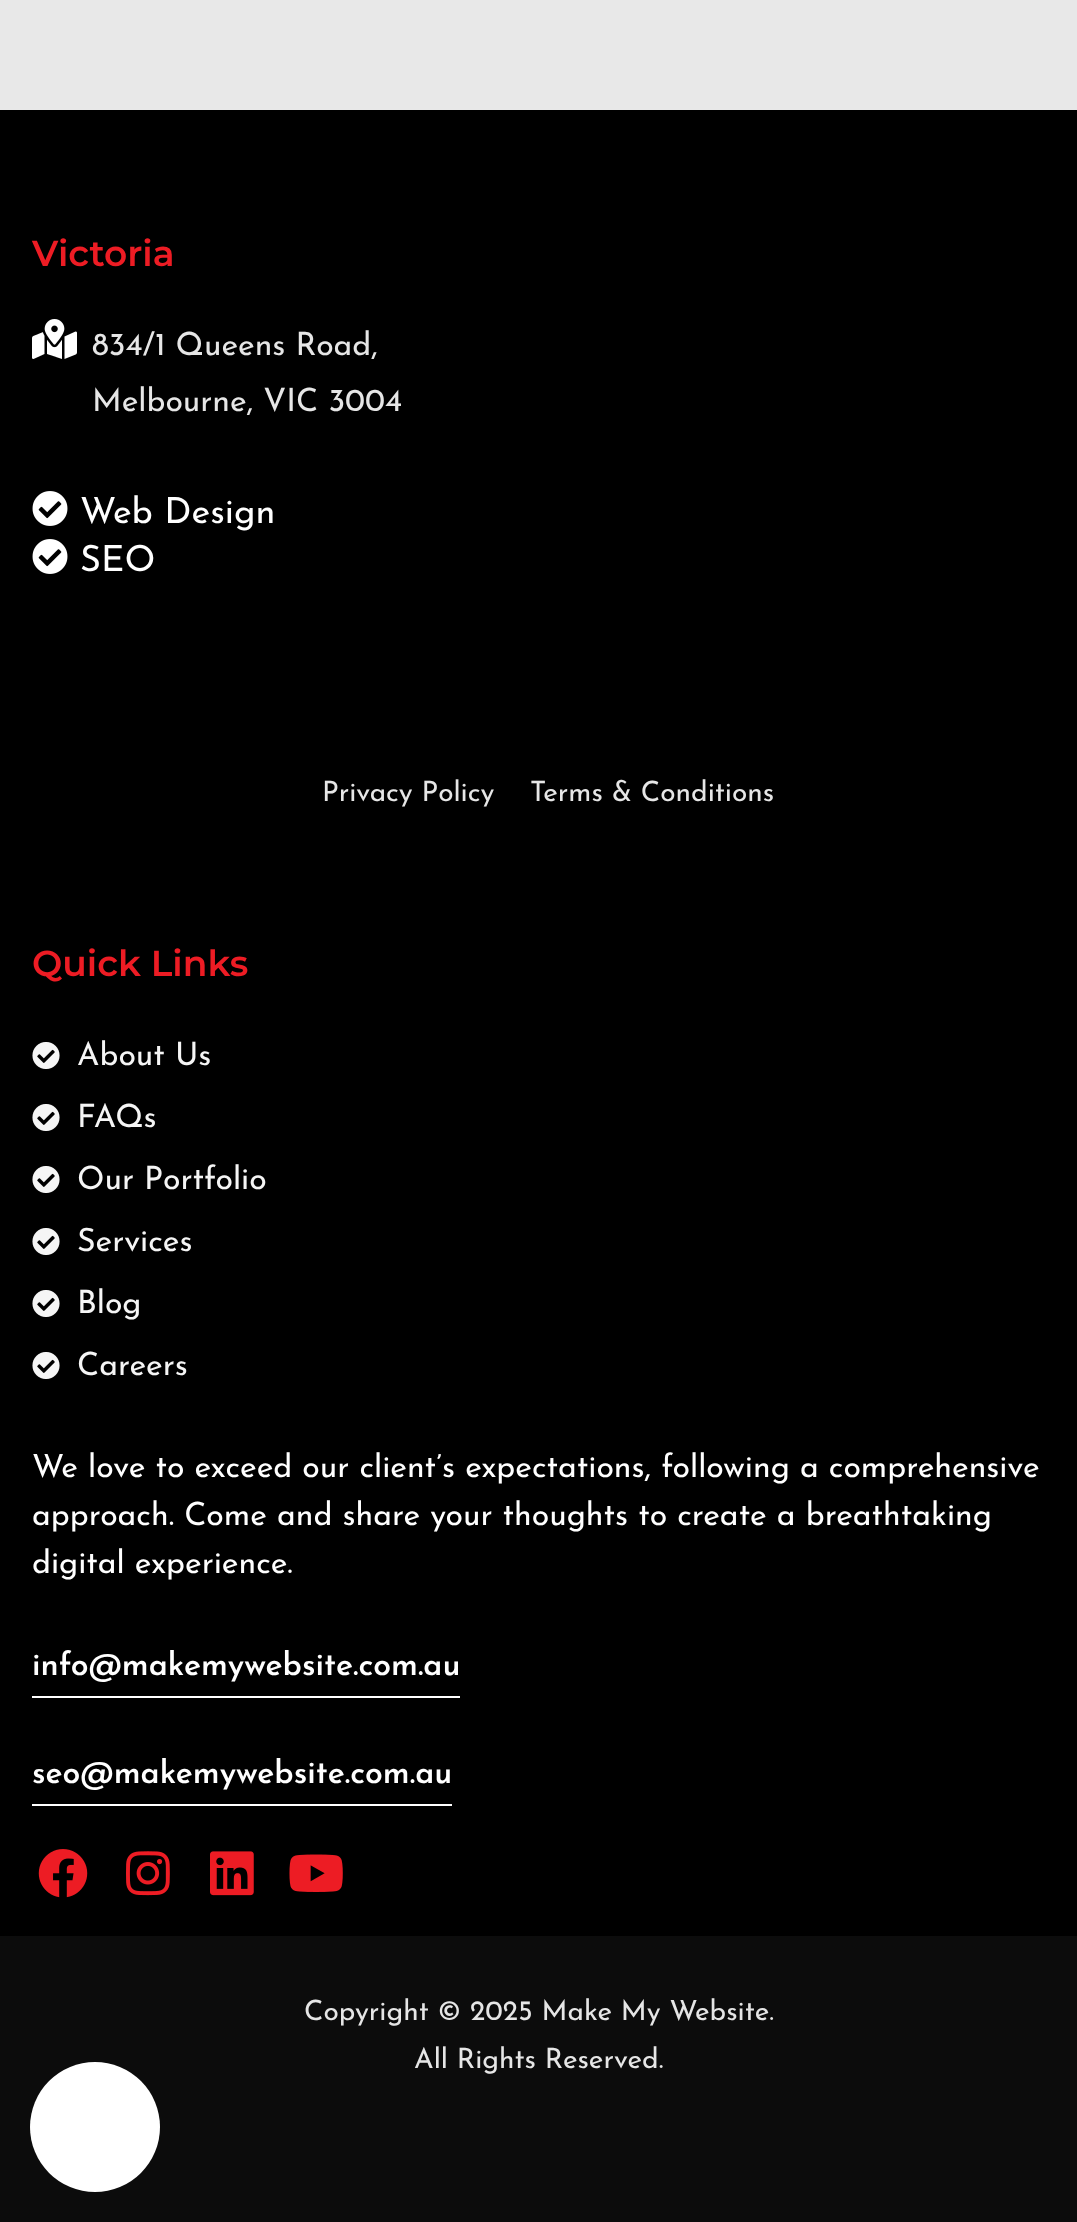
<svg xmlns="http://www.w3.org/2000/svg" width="1077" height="2222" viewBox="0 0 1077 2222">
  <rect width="100%" height="100%" fill="#e8e8e8"/>
  <path d="M0 110h1077v1826H0z" fill="#000"/>
  <image x="32" y="319" width="45" height="40" href="img/1.png"/>
  <image x="32" y="491" width="36" height="35" href="img/2.png"/>
  <image x="32" y="539" width="36" height="35" href="img/2.png"/>
  <image x="32" y="1042" width="28" height="27" href="img/3.png"/>
  <image x="32" y="1104" width="28" height="27" href="img/3.png"/>
  <image x="32" y="1166" width="28" height="27" href="img/3.png"/>
  <image x="32" y="1228" width="28" height="27" href="img/3.png"/>
  <image x="32" y="1290" width="28" height="27" href="img/3.png"/>
  <image x="32" y="1352" width="28" height="27" href="img/3.png"/>
  <path d="M32 1696h428v2H32z" fill="#fff"/>
  <path d="M32 1804h420v2H32z" fill="#fff"/>
  <image x="38" y="1849" width="50" height="49" href="img/4.png"/>
  <image x="126" y="1851" width="44" height="45" href="img/5.png"/>
  <image x="210" y="1851" width="44" height="45" href="img/6.png"/>
  <image x="289" y="1854" width="54" height="38" href="img/7.png"/>
  <path d="M0 1936h1077v286H0z" fill="#0c0c0c"/>
  <circle cx="95" cy="2127" r="65" fill="#fff"/>
  <text x="32" y="266" font-family="Montserrat" font-size="36" font-weight="600" fill="#ed1c24">Victoria</text>
  <g font-family="Josefin Sans" font-size="32" fill="#e6e6e6">
    <text x="92" y="355">834/1 Queens Road,</text>
    <text x="92" y="411">Melbourne, VIC 3004</text>
  </g>
  <g font-family="Josefin Sans" font-size="36" fill="#fff">
    <text x="80" y="523">Web Design</text>
    <text x="80" y="571">SEO</text>
  </g>
  <g font-family="Josefin Sans" font-size="28" fill="#e6e6e6">
    <text x="322" y="801">Privacy Policy</text>
    <text x="530" y="801">Terms &amp; Conditions</text>
  </g>
  <text x="32" y="976" font-family="Montserrat" font-size="36" font-weight="600" fill="#ed1c24">Quick Links</text>
  <g font-family="Josefin Sans" font-size="32" fill="#f5f5f5">
    <text x="77" y="1065">About Us</text>
    <text x="77" y="1127">FAQs</text>
    <text x="77" y="1189">Our Portfolio</text>
    <text x="77" y="1251">Services</text>
    <text x="77" y="1313">Blog</text>
    <text x="77" y="1375">Careers</text>
  </g>
  <g font-family="Josefin Sans" font-size="32" fill="#fff">
    <text x="32" y="1477">We love to exceed our client’s expectations, following a comprehensive</text>
    <text x="32" y="1525">approach. Come and share your thoughts to create a breathtaking</text>
    <text x="32" y="1573">digital experience.</text>
  </g>
  <g font-family="Josefin Sans" font-size="32" font-weight="600" fill="#fff">
    <text x="32" y="1675">info@makemywebsite.com.au</text>
    <text x="32" y="1783">seo@makemywebsite.com.au</text>
  </g>
  <g font-family="Josefin Sans" font-size="28" fill="#e6e6e6">
    <text x="304" y="2020">Copyright © 2025 Make My Website.</text>
    <text x="414" y="2068">All Rights Reserved.</text>
  </g>
</svg>
